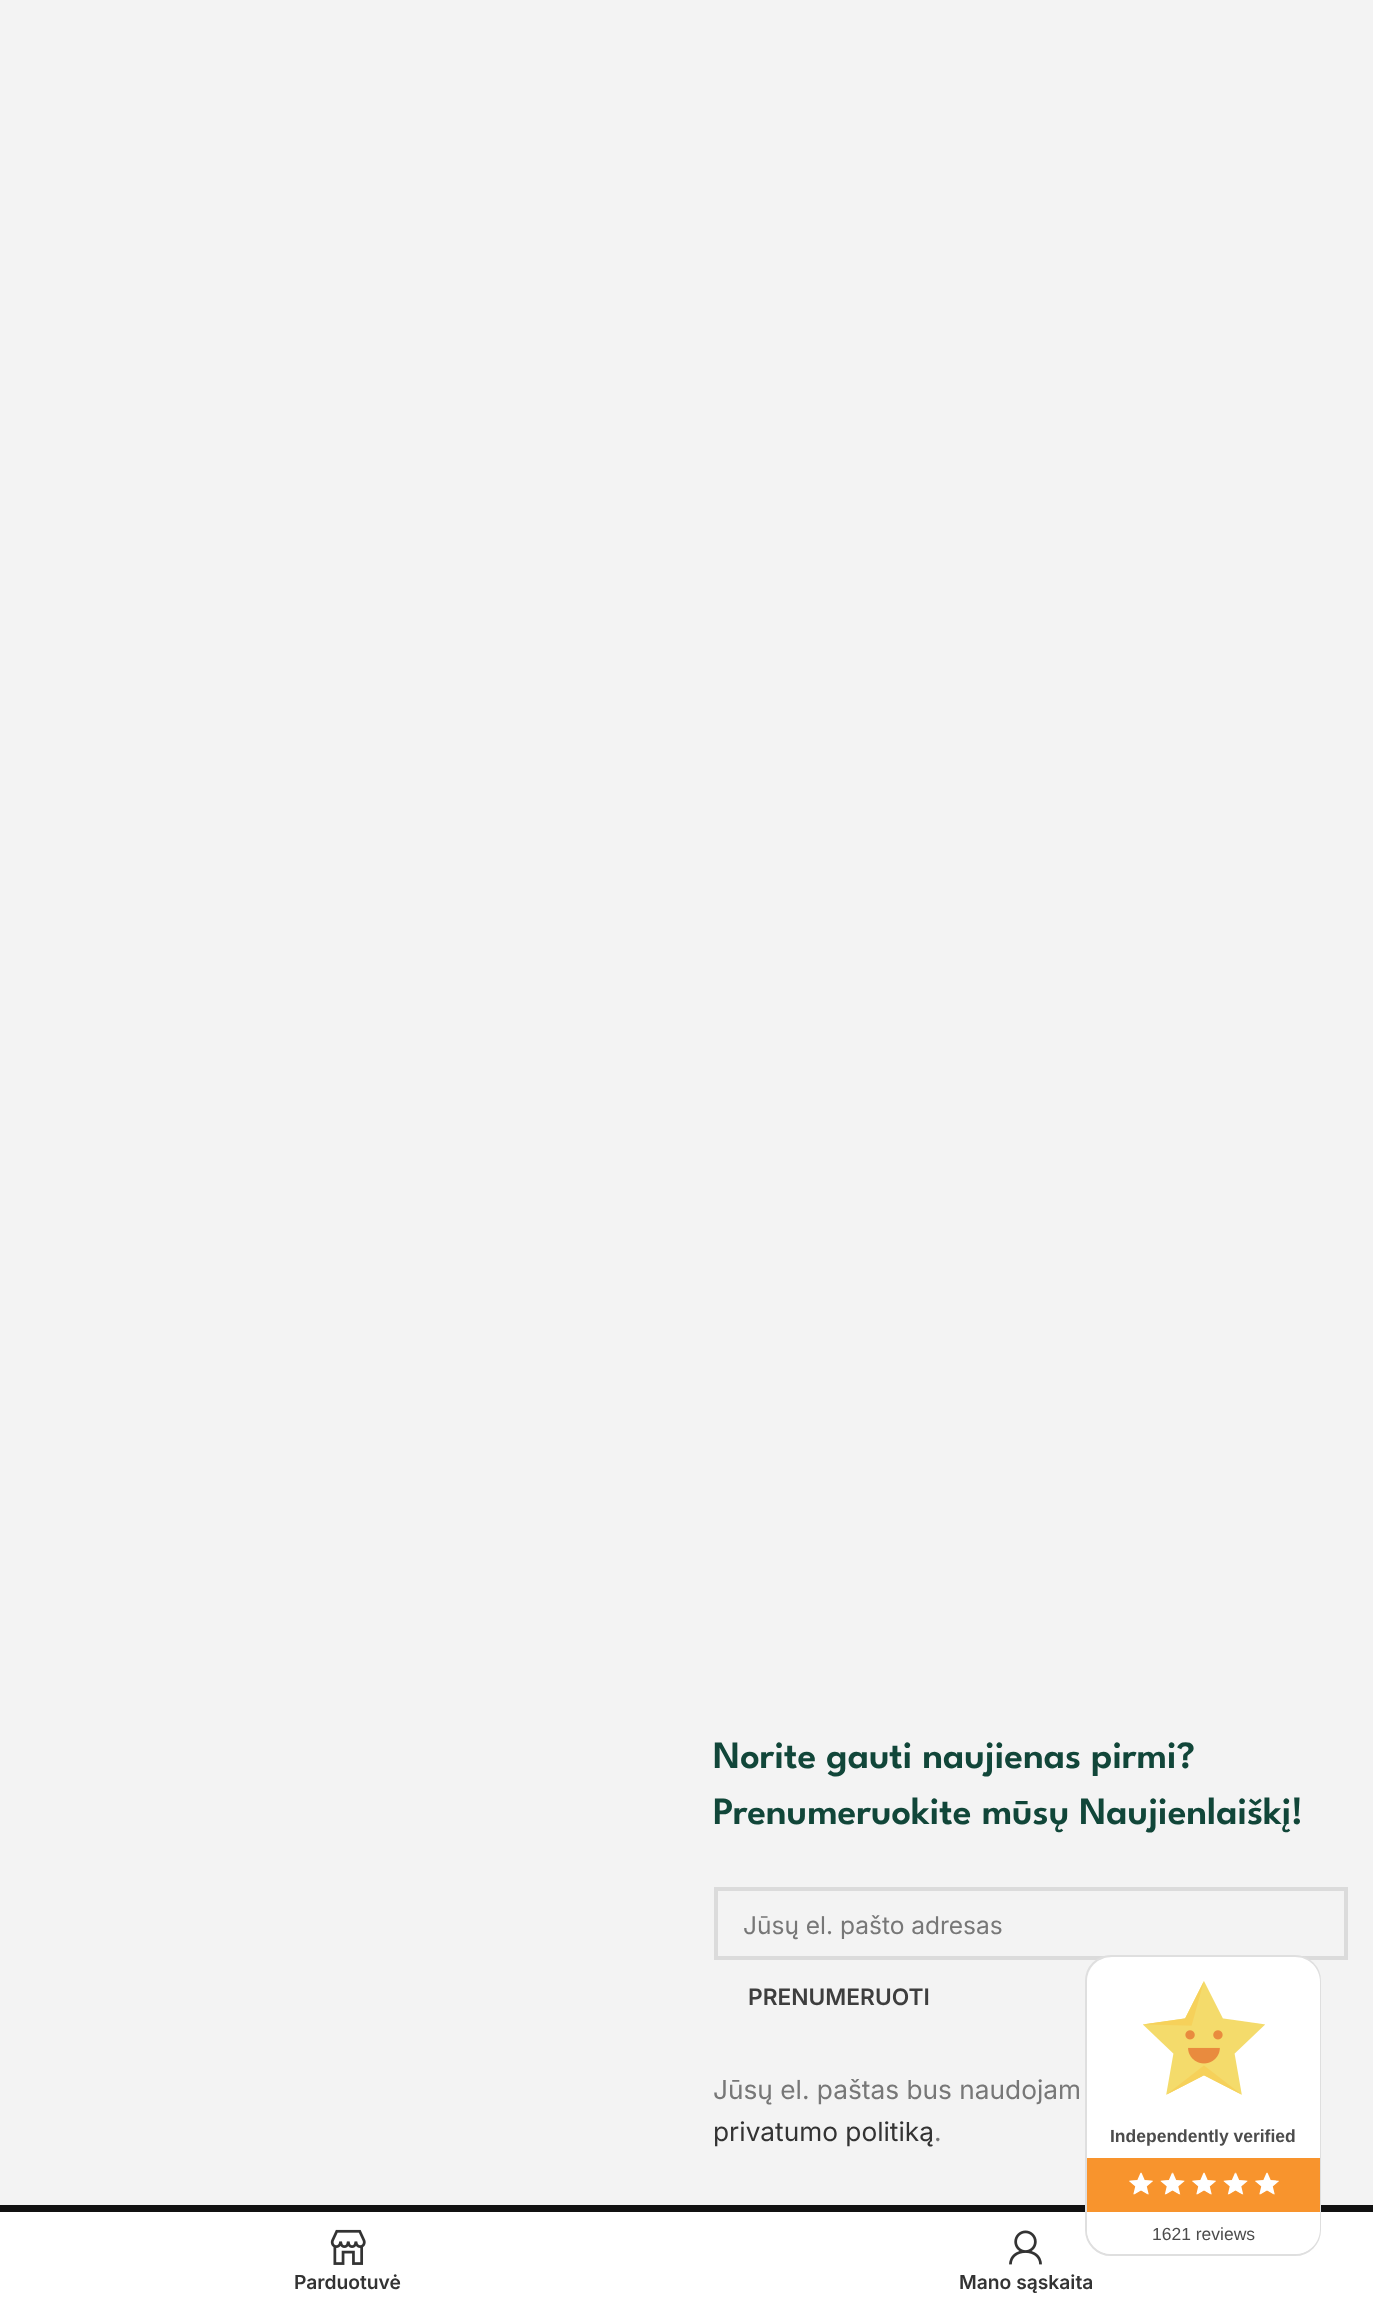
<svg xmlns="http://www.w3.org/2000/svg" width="1373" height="2308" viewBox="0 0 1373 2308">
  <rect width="100%" height="100%" fill="#111"/>
  <path d="M0 0h1373v2205H0z" fill="#f3f3f3"/>
  <path d="M716 1889h630v69H716z" fill="none" stroke="#dbdbdb" stroke-width="4"/>
  <path d="M0 2212h1373v96H0z" fill="#fff"/>
  <rect x="1086" y="1956" width="234" height="299" rx="25" fill="none" stroke="#dfdfdf" stroke-width="2"/>
  <path d="M1112 1957H1295C1309 1957 1320 1968 1320 1982V2158H1087V1982C1087 1968 1098 1957 1112 1957Z" fill="#fff"/>
  <path d="M1087 2158h233v54H1087z" fill="#f8942d"/>
  <path d="M1087 2212H1320V2229C1320 2243 1309 2254 1295 2254H1112C1098 2254 1087 2243 1087 2229Z" fill="#fff"/>
  <image x="1143" y="1981" width="122" height="114" href="img/1.png"/>
  <image x="1129" y="2172" width="24" height="23" href="img/2.png"/>
  <image x="1129" y="2172" width="24" height="23" href="img/3.png"/>
  <image x="1161" y="2172" width="24" height="23" href="img/5.png"/>
  <image x="1160" y="2172" width="24" height="23" href="img/4.png"/>
  <image x="1192" y="2172" width="24" height="23" href="img/2.png"/>
  <image x="1192" y="2172" width="24" height="23" href="img/3.png"/>
  <image x="1224" y="2172" width="24" height="23" href="img/5.png"/>
  <image x="1223" y="2172" width="24" height="23" href="img/4.png"/>
  <image x="1255" y="2172" width="24" height="23" href="img/2.png"/>
  <image x="1255" y="2172" width="21" height="23" href="img/6.png"/>
  <image x="330" y="2229" width="36" height="36" href="img/7.png"/>
  <image x="1009" y="2230" width="33" height="35" href="img/8.png"/>
  <g font-family="League Spartan" font-size="38.5" font-weight="600" fill="#114639">
    <text x="713" y="1768">Norite gauti naujienas pirmi?</text>
    <text x="713" y="1824">Prenumeruokite mūsų Naujienlaiškį!</text>
  </g>
  <text x="743" y="1934" font-family="Inter" font-size="24.5" fill="#777">Jūsų el. pašto adresas</text>
  <text x="748" y="2005" font-family="Inter" font-size="22.75" font-weight="600" fill="#3e3e3e">PRENUMERUOTI</text>
  <text x="713" y="2099" font-family="Inter" font-size="26.25" fill="#777">Jūsų el. paštas bus naudojam</text>
  <text x="713" y="2141" font-family="Inter" font-size="26.25" fill="#333">privatumo politiką</text>
  <text x="934" y="2141" font-family="Inter" font-size="26.25" fill="#777">.</text>
  <text x="1110" y="2142" font-family="Liberation Sans" font-size="17.5" font-weight="bold" fill="#4c4c4c">Independently verified</text>
  <text x="1152" y="2240" font-family="Liberation Sans" font-size="17.5" fill="#4c4c4c">1621 reviews</text>
  <g font-family="Inter" font-size="19.25" font-weight="600" fill="#333">
    <text x="294" y="2289">Parduotuvė</text>
    <text x="959" y="2289">Mano sąskaita</text>
  </g>
</svg>
